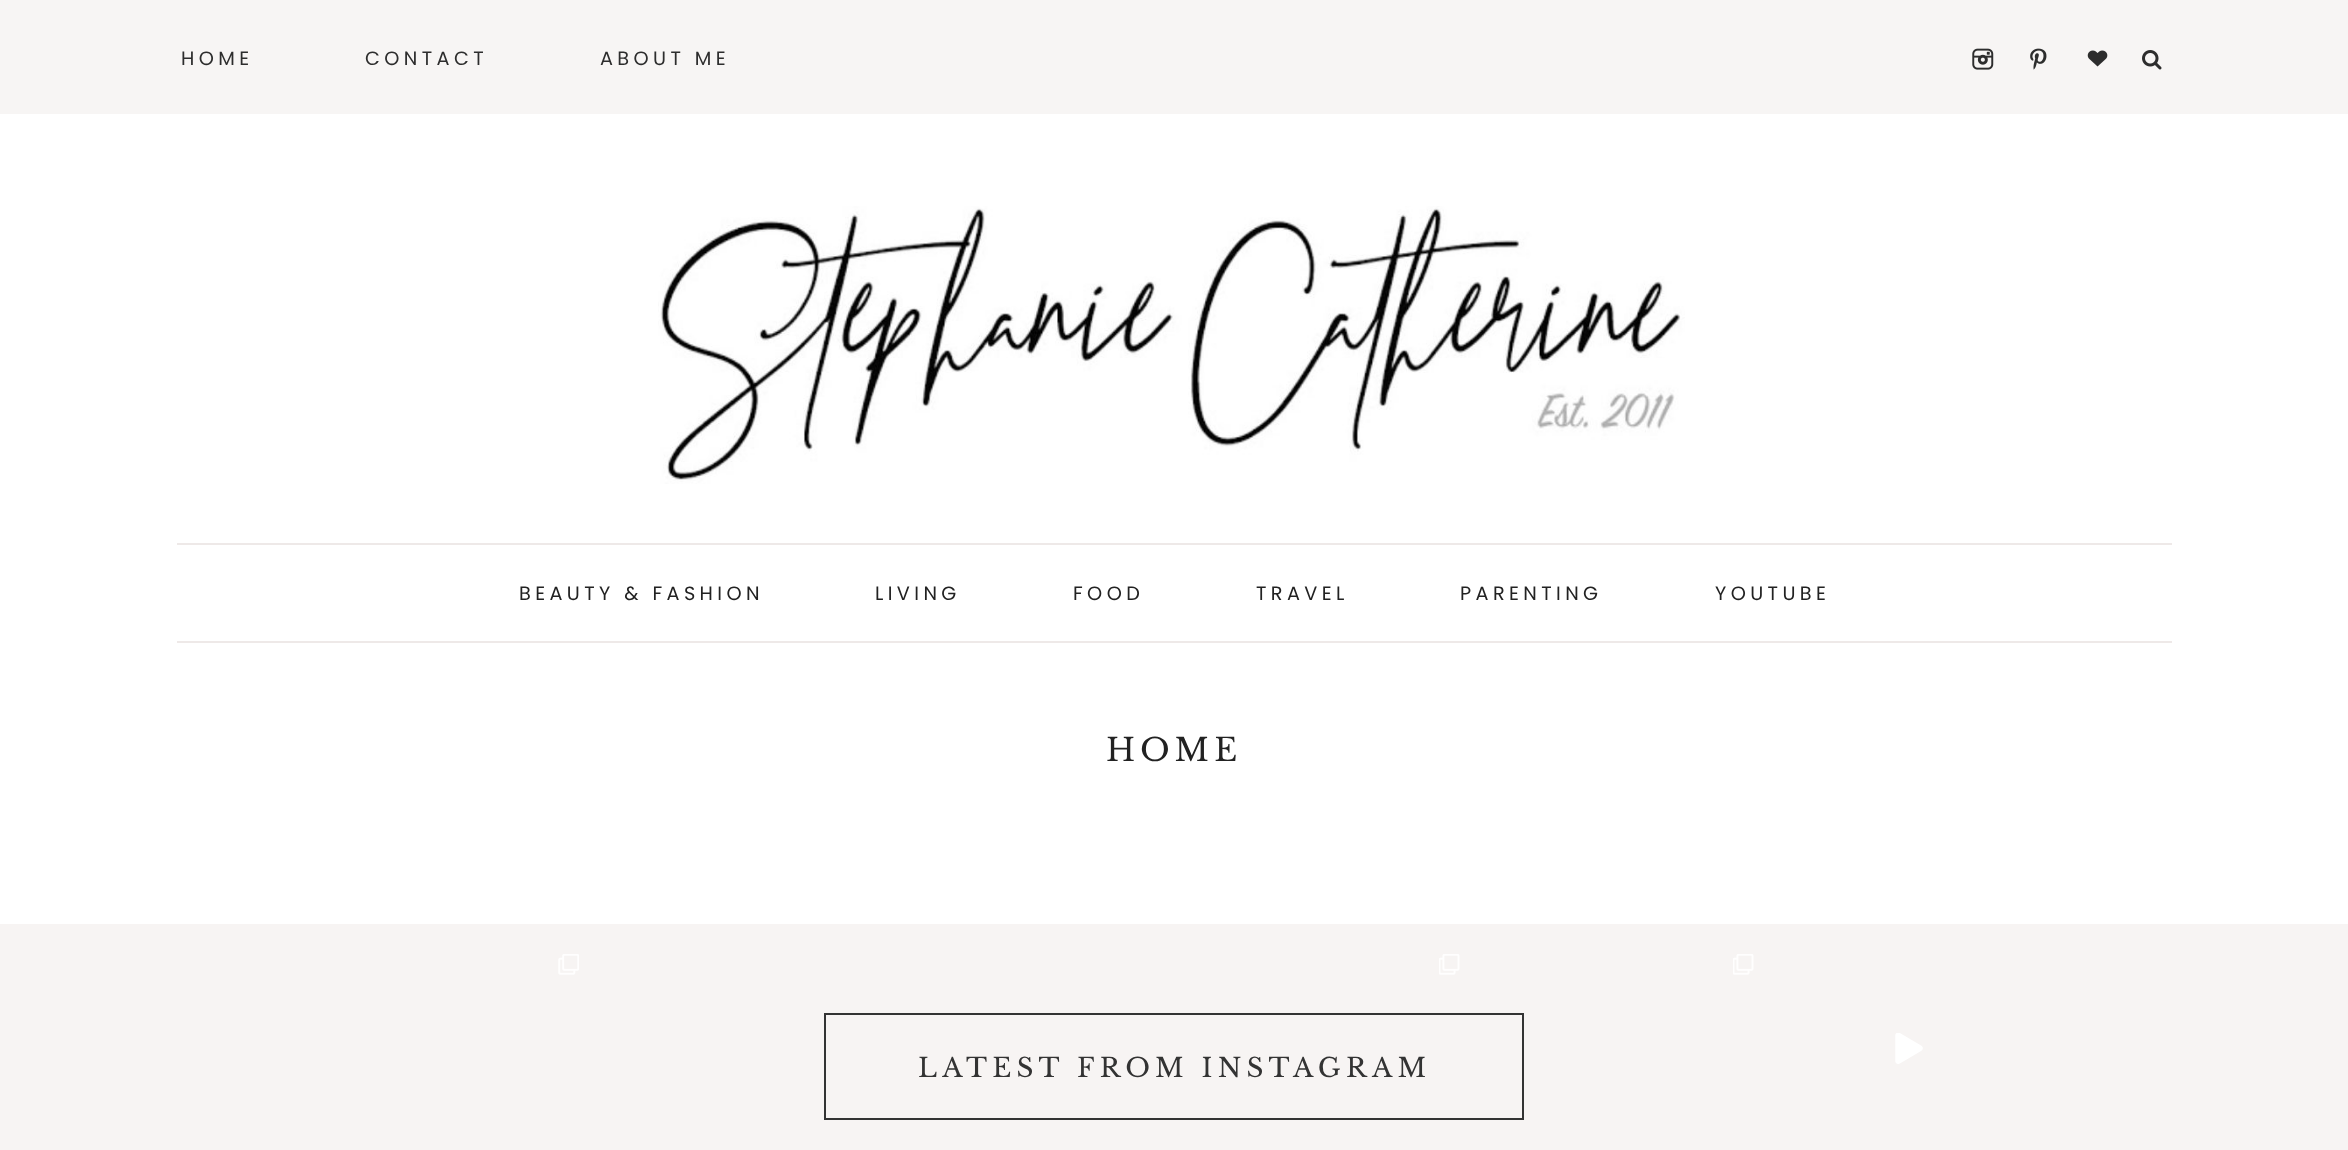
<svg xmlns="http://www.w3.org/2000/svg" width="2348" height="1150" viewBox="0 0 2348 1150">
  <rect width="100%" height="100%" fill="#fff"/>
  <path d="M0 0h2348v114H0z" fill="#f7f5f4"/>
  <image x="1972" y="48" width="22" height="22" href="img/1.png"/>
  <image x="2030" y="48" width="17" height="22" href="img/2.png"/>
  <image x="2087" y="50" width="21" height="17" href="img/3.png"/>
  <image x="2142" y="50" width="20" height="20" href="img/4.png"/>
  <image x="658" y="206" width="1027" height="278" href="img/5.png"/>
  <path d="M177 543h1995v2H177z" fill="#eee9e8"/>
  <path d="M177 641h1995v2H177z" fill="#eee9e8"/>
  <path d="M0 924h2348v226H0z" fill="#f7f4f3"/>
  <image x="558" y="954" width="21" height="21" href="img/6.png"/>
  <image x="1439" y="954" width="21" height="21" href="img/7.png"/>
  <image x="1733" y="954" width="21" height="21" href="img/7.png"/>
  <image x="1895" y="1033" width="28" height="31" href="img/8.png"/>
  <path d="M825 1014h698v105H825z" fill="none" stroke="#333" stroke-width="2"/>
  <g font-family="Poppins" font-size="19.25" letter-spacing="4.4" fill="#2d2d2d">
    <text x="181" y="65">HOME</text>
    <text x="365" y="65">CONTACT</text>
    <text x="600" y="65">ABOUT ME</text>
  </g>
  <g font-family="Poppins" font-size="19.25" letter-spacing="4.4" fill="#222">
    <text x="519" y="600">BEAUTY &amp; FASHION</text>
    <text x="875" y="600">LIVING</text>
    <text x="1073" y="600">FOOD</text>
    <text x="1256" y="600">TRAVEL</text>
    <text x="1460" y="600">PARENTING</text>
    <text x="1715" y="600">YOUTUBE</text>
  </g>
  <text x="1106" y="761" font-family="Libre Baskerville" font-size="31.5" letter-spacing="5.25" fill="#222">HOME</text>
  <text x="918" y="1077" font-family="Libre Baskerville" font-size="26.25" letter-spacing="5.25" fill="#333">LATEST FROM INSTAGRAM</text>
</svg>
